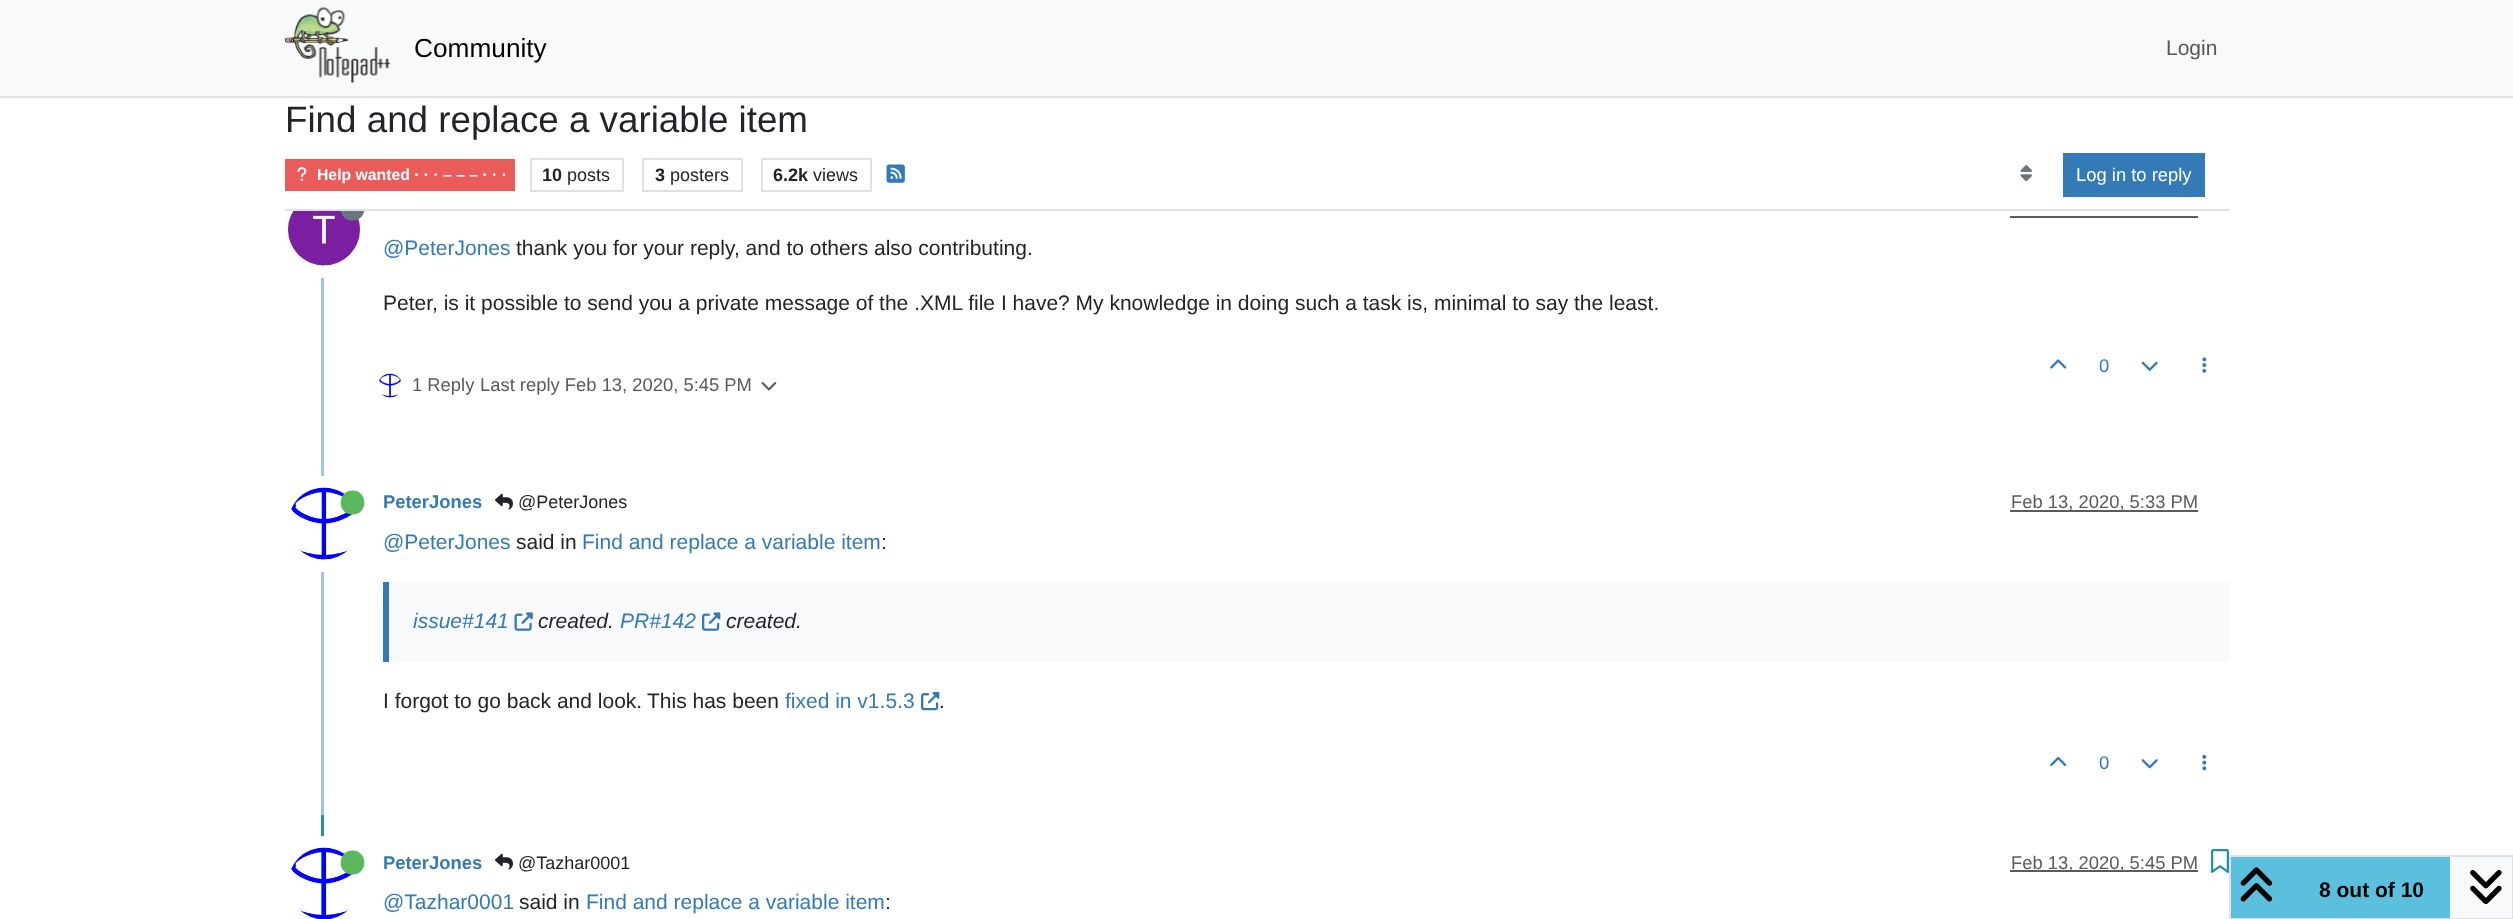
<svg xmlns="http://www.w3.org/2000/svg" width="2513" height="919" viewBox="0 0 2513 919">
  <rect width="100%" height="100%" fill="#fff"/>
  <path d="M0 0h2513v96H0z" fill="#f8f9fa"/>
  <path d="M0 96h2513v2H0z" fill="#dee2e6"/>
  <image x="285" y="7" width="105" height="76" href="img/1.png"/>
  <path d="M321 265h3v550H321z" fill="#a0c4e4"/>
  <circle cx="324" cy="230" r="42" fill="none" stroke="#fff" stroke-width="12"/>
  <image x="288" y="211" width="72" height="55" href="img/5.png"/>
  <path d="M352.5 220.5C368.5 220.5 368 196.5 352.5 196.5C337 196.5 336.5 220.5 352.5 220.5Z" fill="#6c757d"/>
  <path d="M340 196h25v13H340z" fill="#fff"/>
  <path d="M285 209h1944v2H285z" fill="#dee2e6"/>
  <path d="M285 159h230v32H285z" fill="#e95c5a"/>
  <image x="297" y="167" width="10" height="14" href="img/2.png"/>
  <path d="M531 159h92v32H531z" fill="none" stroke="#dee2e6" stroke-width="2"/>
  <path d="M643 159h99v32H643z" fill="none" stroke="#dee2e6" stroke-width="2"/>
  <path d="M762 159h109v32H762z" fill="none" stroke="#dee2e6" stroke-width="2"/>
  <image x="886" y="164" width="19" height="19" href="img/3.png"/>
  <image x="2020" y="165" width="12" height="17" href="img/4.png"/>
  <path d="M2063 153h142v44H2063z" fill="#337ab7"/>
  <path d="M2010 216h188v2H2010z" fill="#595c5f"/>
  <image x="2050" y="359" width="17" height="10" href="img/6.png"/>
  <image x="2141" y="361" width="17" height="10" href="img/7.png"/>
  <image x="2202" y="357" width="5" height="16" href="img/8.png"/>
  <image x="379" y="373" width="22" height="25" href="img/9.png"/>
  <image x="761" y="382" width="16" height="9" href="img/10.png"/>
  <circle cx="324" cy="524" r="42" fill="none" stroke="#fff" stroke-width="12"/>
  <image x="291" y="487" width="61" height="73" href="img/11.png"/>
  <path d="M352.5 514.5C368.5 514.5 368 490.5 352.5 490.5C337 490.5 336.5 514.5 352.5 514.5Z" fill="#5cb85c"/>
  <image x="495" y="493" width="18" height="17" href="img/12.png"/>
  <path d="M2010 510h188v2H2010z" fill="#595c5f"/>
  <path d="M389 582h1840v80H389z" fill="#f8f9fa"/>
  <path d="M383 582h6v80H383z" fill="#337ab7"/>
  <image x="514" y="612" width="19" height="19" href="img/13.png"/>
  <image x="702" y="612" width="19" height="19" href="img/14.png"/>
  <image x="921" y="691" width="19" height="20" href="img/15.png"/>
  <image x="2050" y="756" width="17" height="10" href="img/16.png"/>
  <image x="2141" y="759" width="17" height="10" href="img/17.png"/>
  <image x="2202" y="754" width="5" height="17" href="img/18.png"/>
  <path d="M321 815h3v104H321z" fill="#2390b0"/>
  <circle cx="324" cy="884" r="42" fill="none" stroke="#fff" stroke-width="12"/>
  <image x="291" y="847" width="61" height="72" href="img/19.png"/>
  <path d="M352.5 874.5C368.5 874.5 368 850.5 352.5 850.5C337 850.5 336.5 874.5 352.5 874.5Z" fill="#5cb85c"/>
  <image x="495" y="853" width="18" height="17" href="img/12.png"/>
  <path d="M2010 870h188v2H2010z" fill="#595c5f"/>
  <image x="2211" y="849" width="18" height="24" href="img/20.png"/>
  <path d="M2450 857h62v61H2450z" fill="#f8f9fa"/>
  <path d="M2230 856h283v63H2230z" fill="none" stroke="#dee2e6" stroke-width="2"/>
  <path d="M2231 857h219v61H2231z" fill="#5bc0de"/>
  <image x="2240" y="867" width="33" height="35" href="img/21.png"/>
  <image x="2470" y="870" width="32" height="35" href="img/22.png"/>
  <text x="414" y="57" font-family="Liberation Sans" font-size="26.25" fill="#000">Community</text>
  <text x="2166" y="55" font-family="Liberation Sans" font-size="21" fill="#575758">Login</text>
  <text x="285" y="132" font-family="Liberation Sans" font-size="36.75" fill="#212529">Find and replace a variable item</text>
  <text x="317" y="180" font-family="Liberation Sans" font-size="15.75" font-weight="bold" fill="#fff">Help wanted · · · – – – · · ·</text>
  <text x="542" y="181" font-family="Liberation Sans" font-size="18" font-weight="bold" fill="#212529">10</text>
  <text x="567" y="181" font-family="Liberation Sans" font-size="18" fill="#212529">posts</text>
  <text x="655" y="181" font-family="Liberation Sans" font-size="18" font-weight="bold" fill="#212529">3</text>
  <text x="670" y="181" font-family="Liberation Sans" font-size="18" fill="#212529">posters</text>
  <text x="773" y="181" font-family="Liberation Sans" font-size="18" font-weight="bold" fill="#212529">6.2k</text>
  <text x="813" y="181" font-family="Liberation Sans" font-size="18" fill="#212529">views</text>
  <text x="2076" y="181" font-family="Liberation Sans" font-size="18.4" fill="#fff">Log in to reply</text>
  <text x="383" y="255" font-family="Liberation Sans" font-size="21" fill="#337ab7">@PeterJones</text>
  <g font-family="Liberation Sans" font-size="21" fill="#212529">
    <text x="516" y="255">thank you for your reply, and to others also contributing.</text>
    <text x="383" y="310">Peter, is it possible to send you a private message of the .XML file I have? My knowledge in doing such a task is, minimal to say the least.</text>
  </g>
  <text x="2099" y="372" font-family="Liberation Sans" font-size="18.4" fill="#337ab7">0</text>
  <g font-family="Liberation Sans" font-size="18.4" fill="#595c5f">
    <text x="412" y="391">1 Reply</text>
    <text x="480" y="391">Last reply Feb 13, 2020, 5:45 PM</text>
  </g>
  <text x="383" y="508" font-family="Liberation Sans" font-size="18.4" font-weight="bold" fill="#337ab7">PeterJones</text>
  <text x="518" y="508" font-family="Liberation Sans" font-size="18" fill="#212529">@PeterJones</text>
  <text x="2011" y="508" font-family="Liberation Sans" font-size="18.4" fill="#595c5f">Feb 13, 2020, 5:33 PM</text>
  <text x="383" y="549" font-family="Liberation Sans" font-size="21" fill="#337ab7">@PeterJones</text>
  <text x="516" y="549" font-family="Liberation Sans" font-size="21" fill="#212529">said in</text>
  <text x="582" y="549" font-family="Liberation Sans" font-size="21" fill="#337ab7">Find and replace a variable item</text>
  <text x="881" y="549" font-family="Liberation Sans" font-size="21" fill="#212529">:</text>
  <text x="413" y="628" font-family="Liberation Sans" font-size="21" font-style="italic" fill="#337ab7">issue#141</text>
  <text x="538" y="628" font-family="Liberation Sans" font-size="21" font-style="italic" fill="#212529">created.</text>
  <text x="620" y="628" font-family="Liberation Sans" font-size="21" font-style="italic" fill="#337ab7">PR#142</text>
  <text x="726" y="628" font-family="Liberation Sans" font-size="21" font-style="italic" fill="#212529">created.</text>
  <g font-family="Liberation Sans" font-size="21" fill="#212529">
    <text x="383" y="708">I forgot to go back and look.</text>
    <text x="647" y="708">This has been</text>
  </g>
  <text x="785" y="708" font-family="Liberation Sans" font-size="21" fill="#337ab7">fixed in v1.5.3</text>
  <text x="939" y="708" font-family="Liberation Sans" font-size="21" fill="#212529">.</text>
  <text x="2099" y="769" font-family="Liberation Sans" font-size="18.4" fill="#337ab7">0</text>
  <text x="383" y="869" font-family="Liberation Sans" font-size="18.4" font-weight="bold" fill="#337ab7">PeterJones</text>
  <text x="518" y="869" font-family="Liberation Sans" font-size="18" fill="#212529">@Tazhar0001</text>
  <text x="2011" y="869" font-family="Liberation Sans" font-size="18.4" fill="#595c5f">Feb 13, 2020, 5:45 PM</text>
  <text x="383" y="909" font-family="Liberation Sans" font-size="21" fill="#337ab7">@Tazhar0001</text>
  <text x="519" y="909" font-family="Liberation Sans" font-size="21" fill="#212529">said in</text>
  <text x="586" y="909" font-family="Liberation Sans" font-size="21" fill="#337ab7">Find and replace a variable item</text>
  <text x="885" y="909" font-family="Liberation Sans" font-size="21" fill="#212529">:</text>
  <text x="2319" y="897" font-family="Liberation Sans" font-size="21" font-weight="bold" fill="#000">8 out of 10</text>
</svg>
